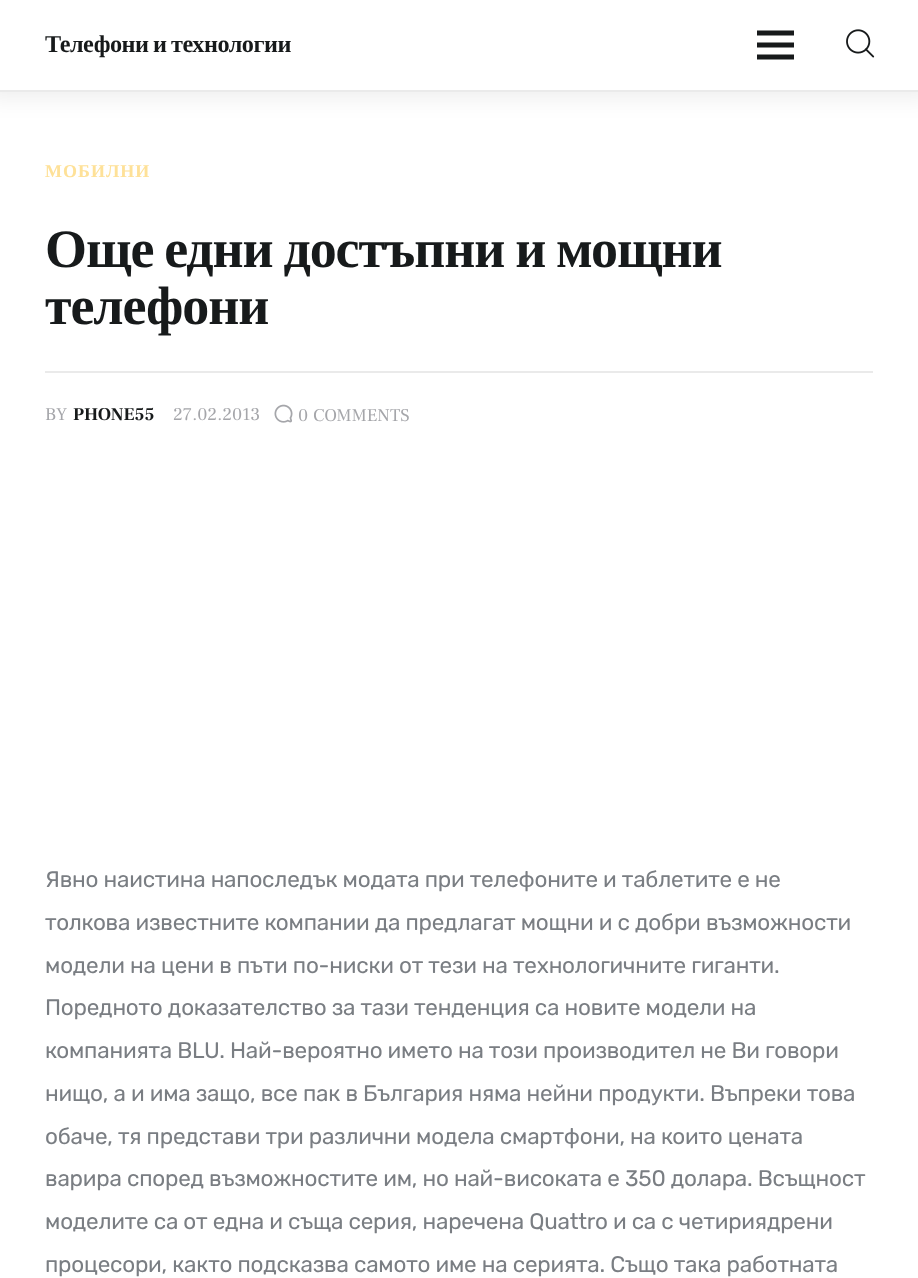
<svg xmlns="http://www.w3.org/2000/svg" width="918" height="1278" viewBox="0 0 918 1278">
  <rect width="100%" height="100%" fill="#fff"/>
  <path d="M-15 5h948v91H-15z" fill="#00000014" filter="blur(12px)"/>
  <path d="M0 0h918v90H0z" fill="#fff"/>
  <path d="M0 90h918v2H0z" fill="#eaeaea"/>
  <path d="M757 59.5H794V54.5H757ZM757 47.5H794V42.5H757ZM757 30.5V35.5H794V30.5Z" fill="#171a1b"/>
  <image x="846" y="29" width="29" height="29" href="img/1.png"/>
  <path d="M45 371h828v2H45z" fill="#eaeaea"/>
  <image x="274" y="404" width="19" height="19" href="img/2.png"/>
  <text x="45" y="52" word-spacing="-1" font-family="Liberation Serif" font-size="24.25" font-weight="bold" letter-spacing="-0.5" fill="#171a1b">Телефони и технологии</text>
  <text x="45" y="177" font-family="Liberation Serif" font-size="18" font-weight="bold" letter-spacing="1" fill="#fee198">МОБИЛНИ</text>
  <g font-family="Liberation Serif" font-size="54" font-weight="bold" letter-spacing="-1.1" fill="#171a1b">
    <text x="45" y="267" word-spacing="-1.5">Още едни достъпни и мощни</text>
    <text x="45" y="324">телефони</text>
  </g>
  <text x="45" y="420" font-family="Frank Ruhl Libre" font-size="18" fill="#a5a6aa">BY</text>
  <text x="73" y="420" font-family="Frank Ruhl Libre" font-size="18" font-weight="bold" fill="#171a1b">PHONE55</text>
  <g font-family="Frank Ruhl Libre" font-size="18" fill="#a5a6aa">
    <text x="173" y="420">27.02.2013</text>
    <text x="298" y="421">0</text>
    <text x="313" y="421">COMMENTS</text>
  </g>
  <g font-family="Rubik" font-size="22.5" letter-spacing="-0.22" fill="#7a7e83">
    <text x="45" y="887">Явно наистина напоследък модата при телефоните и таблетите е не</text>
    <text x="45" y="930">толкова известните компании да предлагат мощни и с добри възможности</text>
    <text x="45" y="973">модели на цени в пъти по-ниски от тези на технологичните гиганти.</text>
    <text x="45" y="1015">Поредното доказателство за тази тенденция са новите модели на</text>
    <text x="45" y="1058">компанията BLU. Най-вероятно името на този производител не Ви говори</text>
    <text x="45" y="1101">нищо, а и има защо, все пак в България няма нейни продукти. Въпреки това</text>
    <text x="45" y="1144">обаче, тя представи три различни модела смартфони, на които цената</text>
    <text x="45" y="1186">варира според възможностите им, но най-високата е 350 долара. Всъщност</text>
    <text x="45" y="1229">моделите са от една и съща серия, наречена Quattro и са с четириядрени</text>
    <text x="45" y="1272">процесори, както подсказва самото име на серията. Също така работната</text>
  </g>
</svg>
